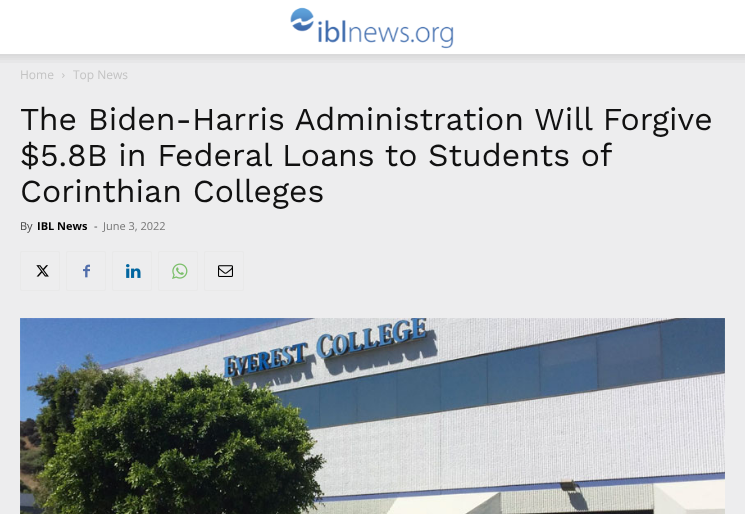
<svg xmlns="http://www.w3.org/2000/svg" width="745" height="514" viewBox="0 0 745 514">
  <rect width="100%" height="100%" fill="#ededee"/>
  <path d="M0 0h745v54H0z" fill="#fff"/>
  <image x="290" y="7" width="164" height="42" href="img/1.png"/>
  <image x="0" y="54" width="745" height="9" href="img/2.png"/>
  <image x="62" y="73" width="3" height="5" href="img/3.png"/>
  <rect x="20.5" y="251.5" width="39" height="39" rx="1.5" fill="none" stroke="#e9e9e9"/>
  <image x="36" y="265" width="13" height="12" href="img/4.png"/>
  <rect x="66.5" y="251.5" width="39" height="39" rx="1.5" fill="none" stroke="#e9e9e9"/>
  <image x="83" y="264" width="7" height="14" href="img/5.png"/>
  <rect x="112.5" y="251.5" width="39" height="39" rx="1.5" fill="none" stroke="#e9e9e9"/>
  <image x="126" y="264" width="15" height="14" href="img/6.png"/>
  <rect x="158.5" y="251.5" width="39" height="39" rx="1.5" fill="none" stroke="#e9e9e9"/>
  <image x="172" y="263" width="16" height="16" href="img/7.png"/>
  <rect x="204.5" y="251.5" width="39" height="39" rx="1.5" fill="none" stroke="#e9e9e9"/>
  <image x="218" y="265" width="15" height="12" href="img/8.png"/>
  <image x="20" y="318" width="705" height="196" href="img/9.png"/>
  <g font-family="Open Sans" font-size="12" fill="#c3c3c3">
    <text x="20" y="79">Home</text>
    <text x="73" y="79">Top News</text>
  </g>
  <g font-family="Work Sans" font-size="32" fill="#111">
    <text x="20" y="130">The Biden-Harris Administration Will Forgive</text>
    <text x="20" y="166" word-spacing="-0.25">$5.8B in Federal Loans to Students of</text>
    <text x="20" y="202">Corinthian Colleges</text>
  </g>
  <text x="20" y="230" font-family="Open Sans" font-size="11" fill="#444">By</text>
  <text x="37" y="230" font-family="Open Sans" font-size="11" font-weight="bold" fill="#000">IBL News</text>
  <text x="94" y="230" font-family="Open Sans" font-size="11" fill="#444">-</text>
  <text x="103" y="230" font-family="Open Sans" font-size="11" fill="#767676">June 3, 2022</text>
</svg>
